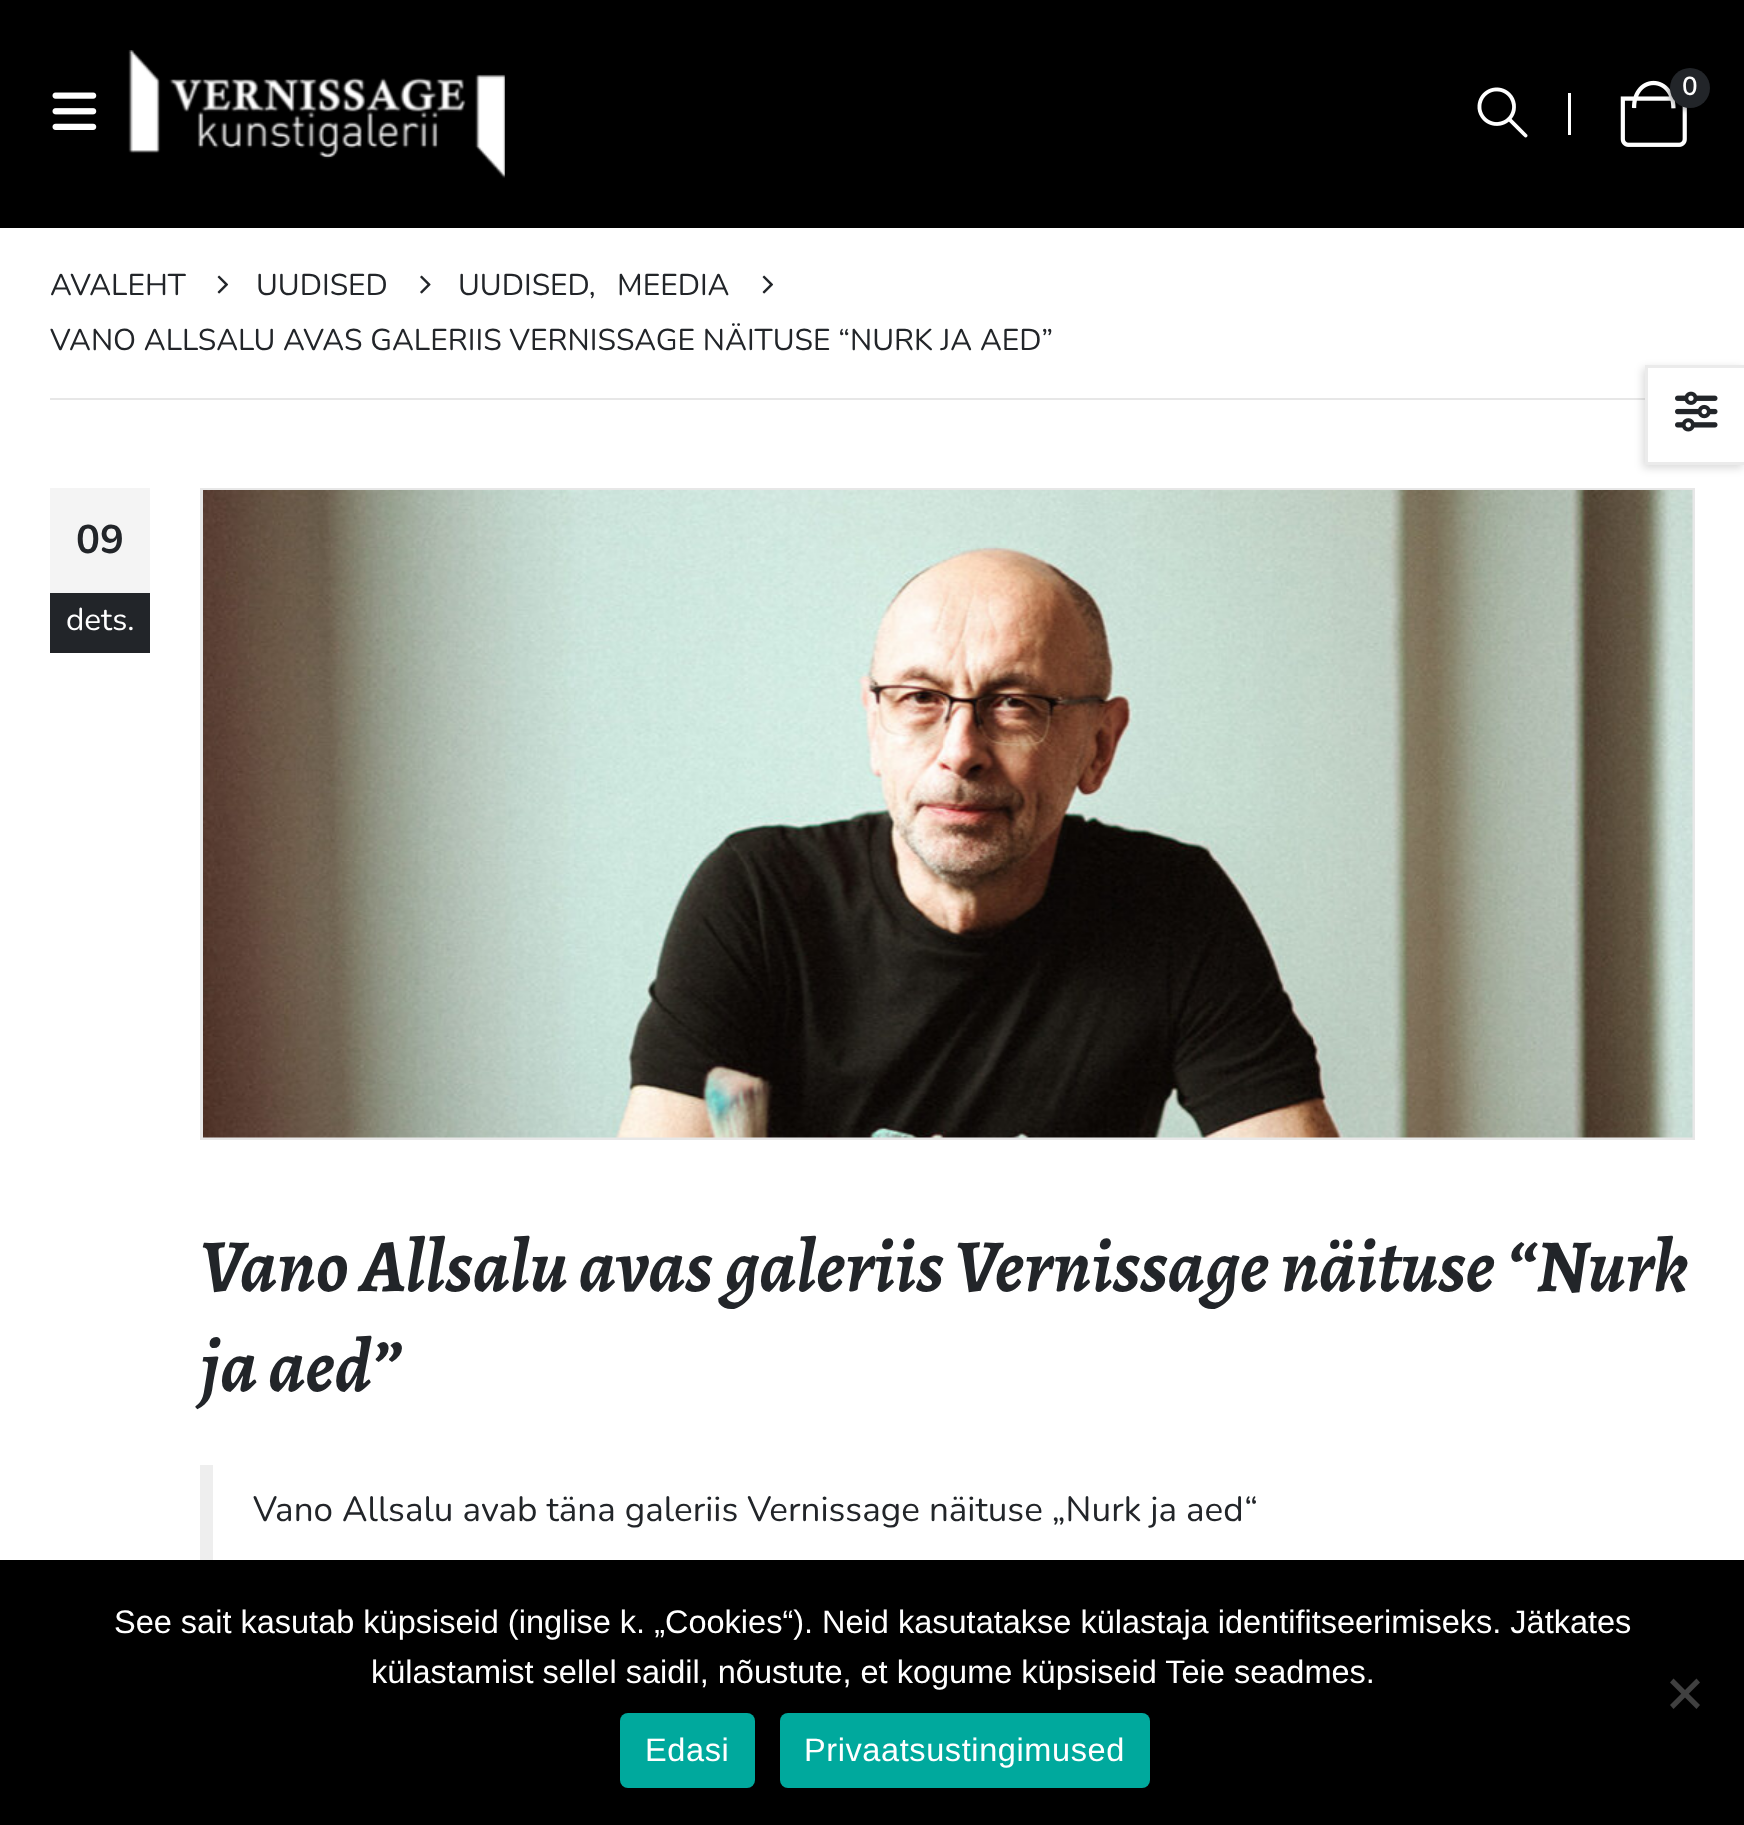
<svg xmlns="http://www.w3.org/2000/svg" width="1744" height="1825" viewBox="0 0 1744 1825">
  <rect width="100%" height="100%" fill="#fff"/>
  <path d="M0 0h1744v228H0z" fill="#000"/>
  <image x="52" y="92" width="45" height="38" href="img/1.png"/>
  <image x="128" y="50" width="377" height="128" href="img/2.png"/>
  <image x="1477" y="87" width="51" height="51" href="img/3.png"/>
  <path d="M1568 93h3v42H1568z" fill="#fff"/>
  <image x="1620" y="80" width="67" height="67" href="img/4.png"/>
  <rect x="1668" y="70" width="40" height="40" rx="20" fill="#0000004d" filter="blur(2.5px)"/>
  <circle cx="1690" cy="88" r="20" fill="#222529"/>
  <image x="217" y="275" width="12" height="19" href="img/5.png"/>
  <image x="420" y="275" width="11" height="19" href="img/6.png"/>
  <image x="762" y="275" width="12" height="19" href="img/5.png"/>
  <path d="M50 398h1595v2H50z" fill="#e7e7e7"/>
  <path d="M1643 368h100v100H1643z" fill="#00000026" filter="blur(4px)"/>
  <path d="M1645 365h99v100H1645z" fill="#fff"/>
  <path d="M1645 365H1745V368H1648Z" fill="#ebebeb"/>
  <path d="M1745 465H1645L1648 462H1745Z" fill="#ebebeb"/>
  <path d="M1645 465V365L1648 368V462Z" fill="#00000014"/>
  <image x="1675" y="391" width="43" height="41" href="img/7.png"/>
  <path d="M50 488h100v105H50z" fill="#f4f4f4"/>
  <path d="M50 593h100v57H50z" fill="#222529"/>
  <path d="M50 650h100v3H50z" fill="#202226"/>
  <path d="M201.5 489.5h1492v649H201.5z" fill="none" stroke="#e7e7e7" stroke-width="3"/>
  <image x="203" y="490" width="1490" height="648" href="img/8.png"/>
  <path d="M200 1465h13v95H200z" fill="#eee"/>
  <path d="M0 1560h1744v265H0z" fill="#000"/>
  <path d="M1696.5 1678.5L1700 1682.5L1673.5 1709L1670 1705Z" fill="#404040"/>
  <path d="M1670 1682.5L1673.5 1678.5L1700 1705L1696.5 1709Z" fill="#404040"/>
  <rect x="620" y="1713" width="135" height="75" rx="8" fill="#00a99d"/>
  <rect x="780" y="1713" width="370" height="75" rx="8" fill="#00a99d"/>
  <text x="1682" y="95" font-family="Nunito" font-size="26" font-weight="600" fill="#fff">0</text>
  <g font-family="Nunito" font-size="30" fill="#222529">
    <text x="50" y="295">AVALEHT</text>
    <text x="256" y="295">UUDISED</text>
    <text x="458" y="295">UUDISED,</text>
    <text x="617" y="295">MEEDIA</text>
    <text x="50" y="350">VANO ALLSALU AVAS GALERIIS VERNISSAGE NÄITUSE “NURK JA AED”</text>
  </g>
  <text x="76" y="553" font-family="Nunito" font-size="40" font-weight="bold" fill="#222529">09</text>
  <text x="66" y="630" font-family="Nunito" font-size="31.5" fill="#fff">dets.</text>
  <g font-family="Alegreya" font-size="75" font-weight="bold" font-style="italic" fill="#222529">
    <text x="200" y="1291">Vano Allsalu avas galeriis Vernissage näituse “Nurk</text>
    <text x="200" y="1391">ja aed”</text>
  </g>
  <text x="253" y="1521" font-family="Nunito" font-size="35" fill="#222529">Vano Allsalu avab täna galeriis Vernissage näituse „Nurk ja aed“</text>
  <g font-family="Liberation Sans" font-size="32.5" fill="#fff">
    <text x="114" y="1633">See sait kasutab küpsiseid (inglise k. „Cookies“). Neid kasutatakse külastaja identifitseerimiseks. Jätkates</text>
    <text x="371" y="1683">külastamist sellel saidil, nõustute, et kogume küpsiseid Teie seadmes.</text>
  </g>
  <g font-family="Liberation Sans" font-size="32.5" letter-spacing="0.6" fill="#fff">
    <text x="645" y="1761">Edasi</text>
    <text x="804" y="1761">Privaatsustingimused</text>
  </g>
</svg>
